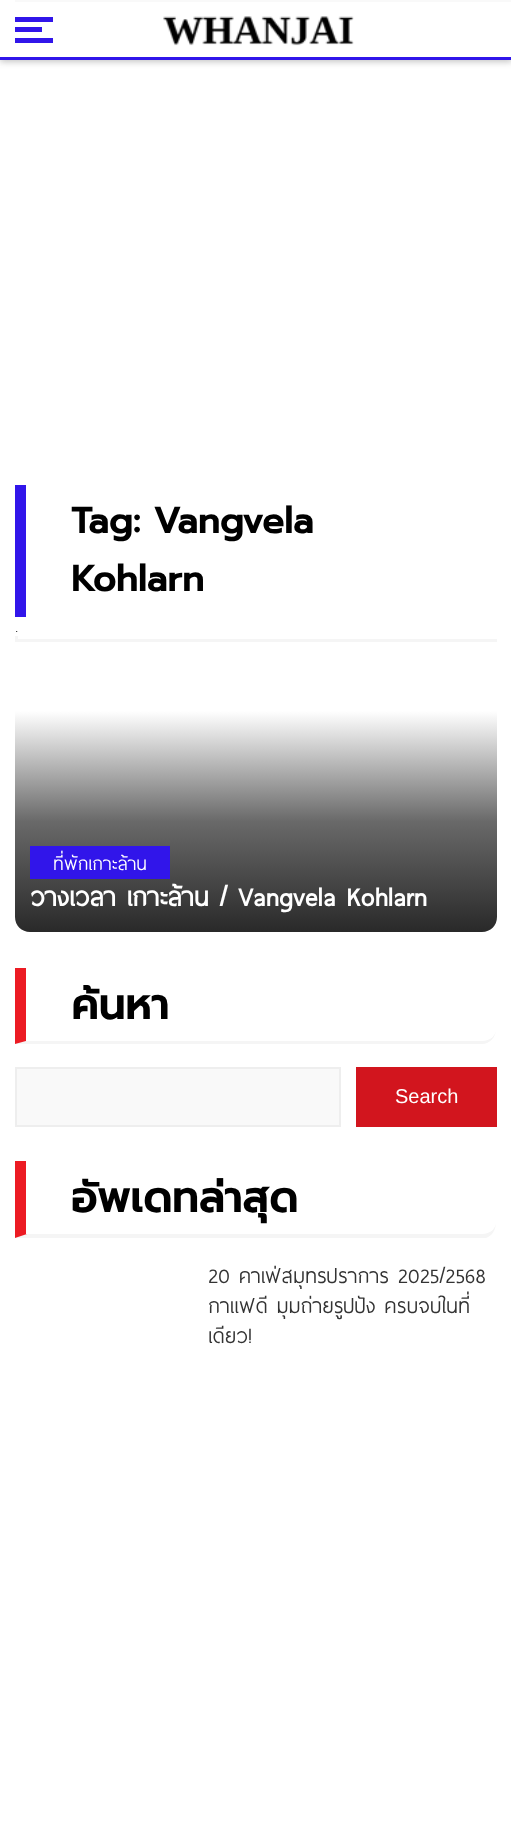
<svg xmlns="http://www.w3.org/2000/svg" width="511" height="1839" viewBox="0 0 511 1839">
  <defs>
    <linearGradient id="g1" gradientUnits="userSpaceOnUse" x1="256" y1="711" x2="256" y2="932"><stop offset="0" stop-color="#fff"/><stop offset="0.5" stop-color="#696969"/><stop offset="1" stop-color="#292929"/></linearGradient>
  </defs>
  <rect width="100%" height="100%" fill="#fff"/>
  <path d="M0 2h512v60H0z" fill="#32323247" filter="blur(3px)"/>
  <path d="M0 0h511v57H0z" fill="#fff"/>
  <path d="M0 57h511v3H0z" fill="#3115ea"/>
  <path d="M15 0h496v2H15z" fill="#f9f9f9"/>
  <path d="M15 17h38v5H15z" fill="#3115ea"/>
  <path d="M15 27h27v5H15z" fill="#3115ea"/>
  <path d="M15 38h38v5H15z" fill="#3115ea"/>
  <image x="163" y="16" width="191" height="30" href="img/1.png"/>
  <path d="M15 639h482v3H15z" fill="#f5f5f5"/>
  <path d="M15 485h11v132H15z" fill="#3115ea"/>
  <path d="M15 636h3v3H15z" fill="#f5f5f5"/>
  <path d="M15 711H497V917C497 925.5 490.5 932 482 932H30C21.5 932 15 925.5 15 917Z" fill="url(#g1)"/>
  <path d="M30 846h140v33H30z" fill="#3115ea"/>
  <path d="M482 1044C490 1044 496 1037 496 1029C496 1036 490 1041 482 1041H26L15 1044Z" fill="#f5f5f5"/>
  <path d="M26 968H15V1044L26 1041Z" fill="#ec1b23"/>
  <path d="M16 1068h324v58H16z" fill="#f9f9f9" stroke="#eee" stroke-width="2"/>
  <path d="M356 1067h141v60H356z" fill="#d2151e"/>
  <path d="M486 1238H15L27 1234H482C490 1234 496 1229 496 1222C496 1230 492 1236 486 1238Z" fill="#f5f5f5"/>
  <path d="M15 1161H26V1234H27L15 1238Z" fill="#ec1b23"/>
  <g font-family="Prompt" font-size="36" font-weight="bold" fill="#000">
    <text x="71" y="533">Tag: Vangvela</text>
    <text x="71" y="591">Kohlarn</text>
  </g>
  <text x="15" y="632" font-family="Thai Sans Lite" font-size="20" fill="#333">.</text>
  <text x="53" y="870" font-family="Thai Sans Lite" font-size="24" fill="#fff">ที่พักเกาะล้าน</text>
  <text x="30" y="906" font-family="Thai Sans Lite" font-size="33.6" font-weight="bold" fill="#fff">วางเวลา เกาะล้าน / Vangvela Kohlarn</text>
  <text x="71" y="1019" font-family="Prompt" font-size="42" font-weight="bold" fill="#000">ค้นหา</text>
  <text x="395" y="1103" font-family="Liberation Sans" font-size="20" fill="#fff">Search</text>
  <text x="71" y="1212" font-family="Prompt" font-size="42" font-weight="bold" fill="#000">อัพเดทล่าสุด</text>
  <g font-family="Thai Sans Lite" font-size="27" fill="#333">
    <text x="208" y="1283">20 คาเฟ่สมุทรปราการ 2025/2568</text>
    <text x="208" y="1313">กาแฟดี มุมถ่ายรูปปัง ครบจบในที่</text>
    <text x="208" y="1343">เดียว!</text>
  </g>
</svg>
